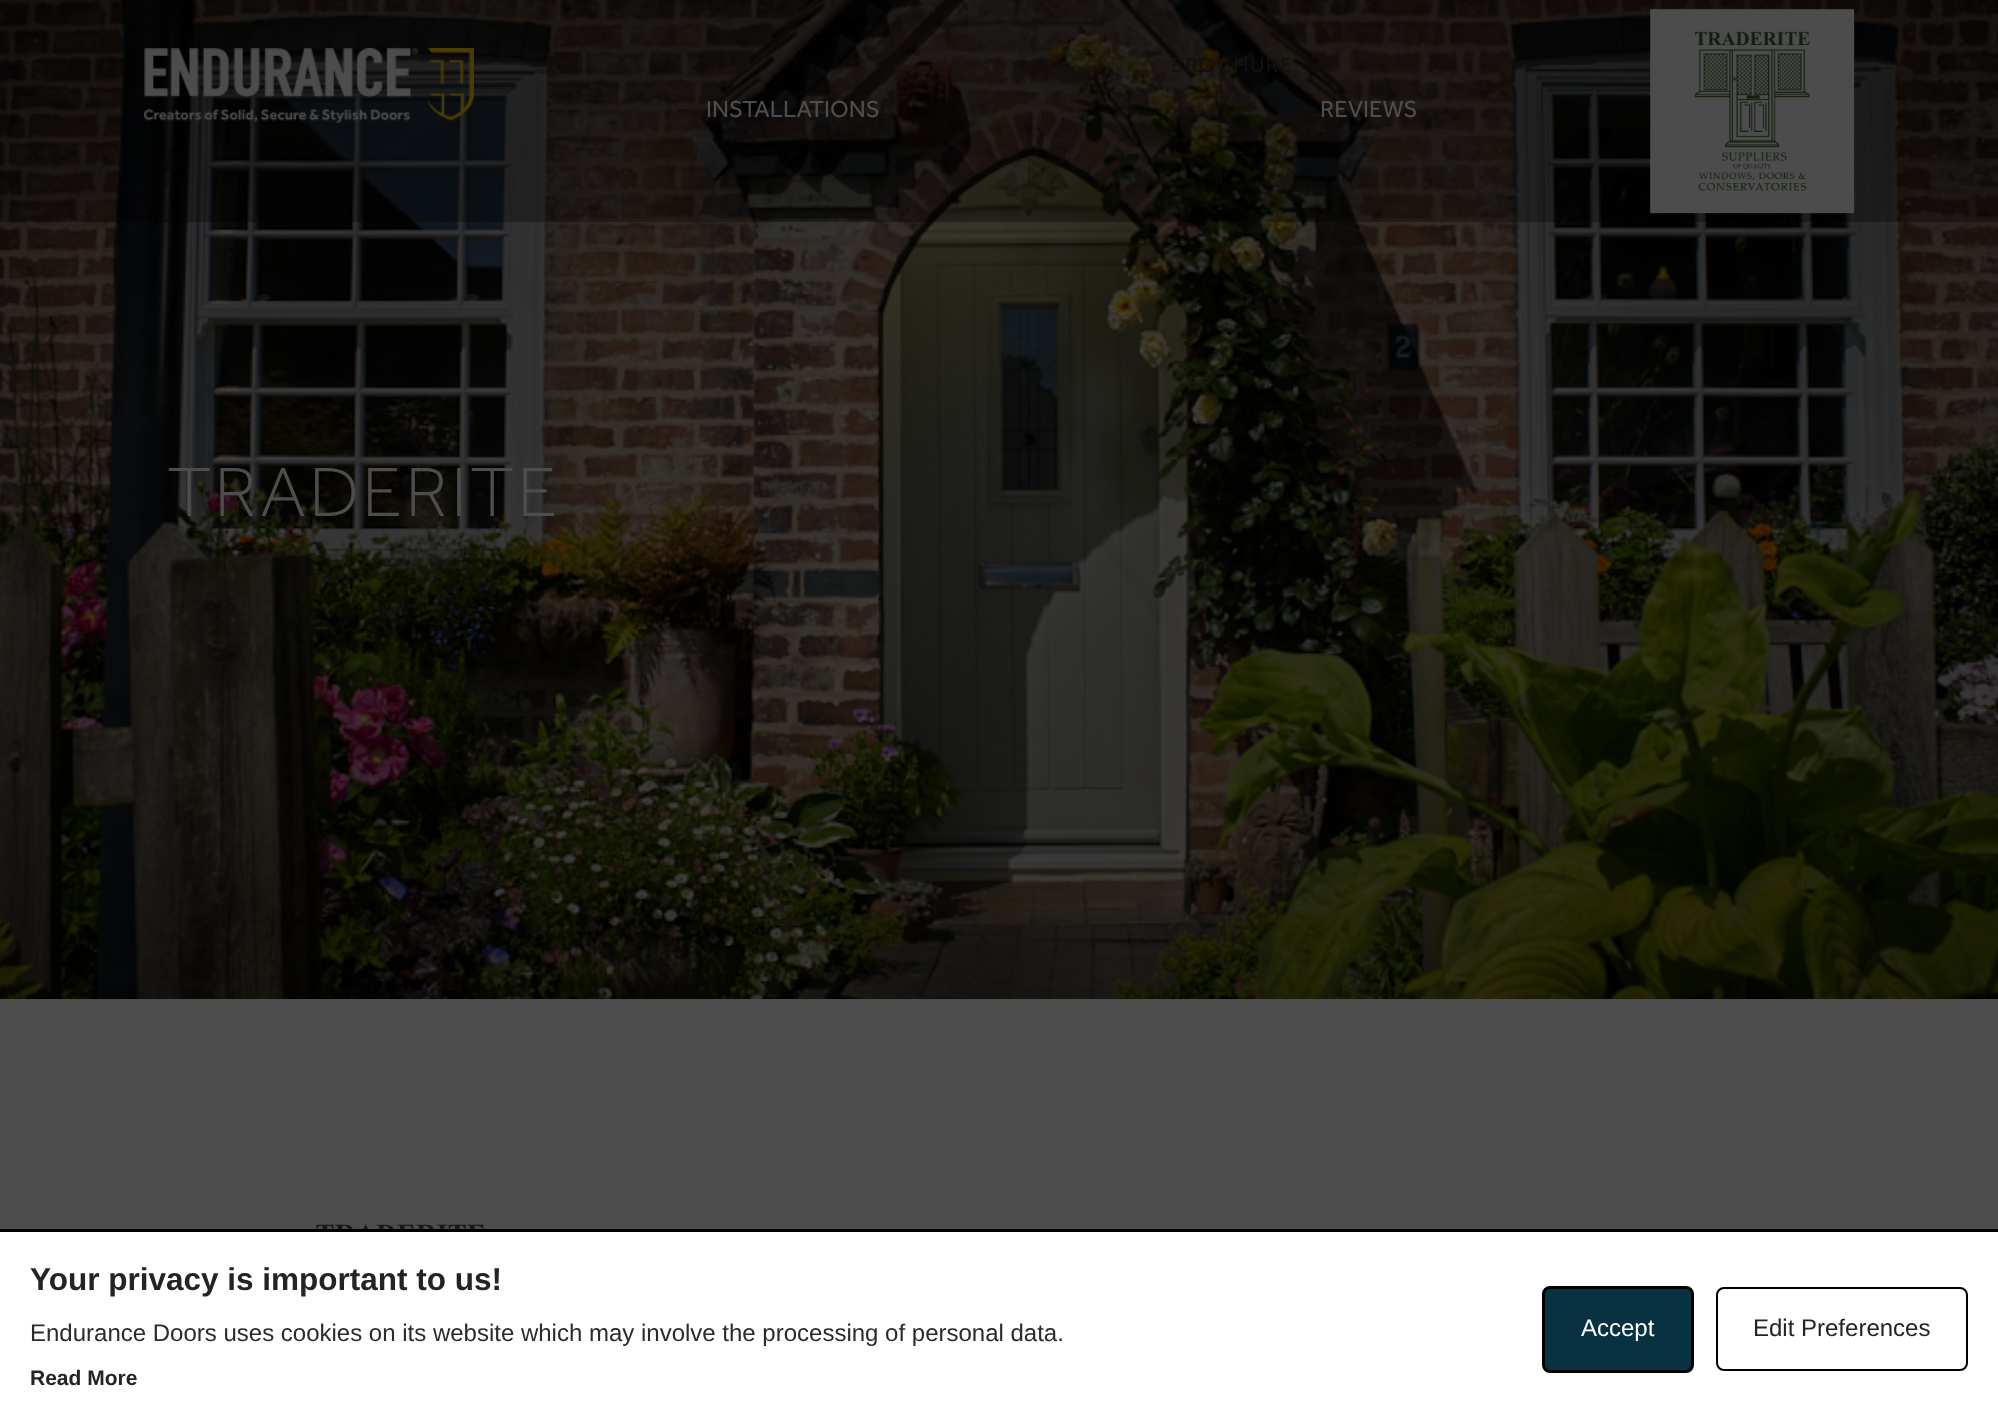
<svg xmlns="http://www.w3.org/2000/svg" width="1998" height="1426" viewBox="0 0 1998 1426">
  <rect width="100%" height="100%" fill="#4d4d4d"/>
  <image x="0" y="0" width="1998" height="999" href="img/3.png"/>
  <path d="M0 0h1998v222H0z" fill="#0000004d"/>
  <image x="144" y="48" width="330" height="75" href="img/1.png"/>
  <image x="1650" y="9" width="205" height="205" href="img/2.png"/>
  <image x="316" y="1224" width="169" height="5" href="img/4.png"/>
  <path d="M0 1232h1998v194H0z" fill="#fff"/>
  <path d="M0 1229h1998v3H0z" fill="#000"/>
  <rect x="1543.5" y="1287.5" width="149" height="84" rx="6.5" fill="#083141" stroke="#000" stroke-width="3"/>
  <rect x="1717" y="1288" width="250" height="82" rx="7" fill="none" stroke="#000" stroke-width="2"/>
  <text x="1171" y="72" font-family="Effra" font-size="21.5" letter-spacing="1.5" fill="#14110d">BROCHURE</text>
  <g font-family="Effra" font-size="24" fill="#4d4d4d">
    <text x="706" y="117">INSTALLATIONS</text>
    <text x="1320" y="117">REVIEWS</text>
  </g>
  <text x="167" y="516" font-family="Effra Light" font-size="72" font-weight="300" letter-spacing="3" fill="#4d4d4d">TRADERITE</text>
  <text x="30" y="1290" font-family="Liberation Sans" font-size="31.5" font-weight="bold" fill="#242424">Your privacy is important to us!</text>
  <text x="30" y="1341" font-family="Liberation Sans" font-size="24" fill="#2b2b2b">Endurance Doors uses cookies on its website which may involve the processing of personal data.</text>
  <text x="30" y="1385" font-family="Liberation Sans" font-size="21" font-weight="bold" fill="#242424">Read More</text>
  <text x="1581" y="1336" font-family="Liberation Sans" font-size="24" fill="#fff">Accept</text>
  <text x="1753" y="1336" font-family="Liberation Sans" font-size="24" fill="#242424">Edit Preferences</text>
</svg>
